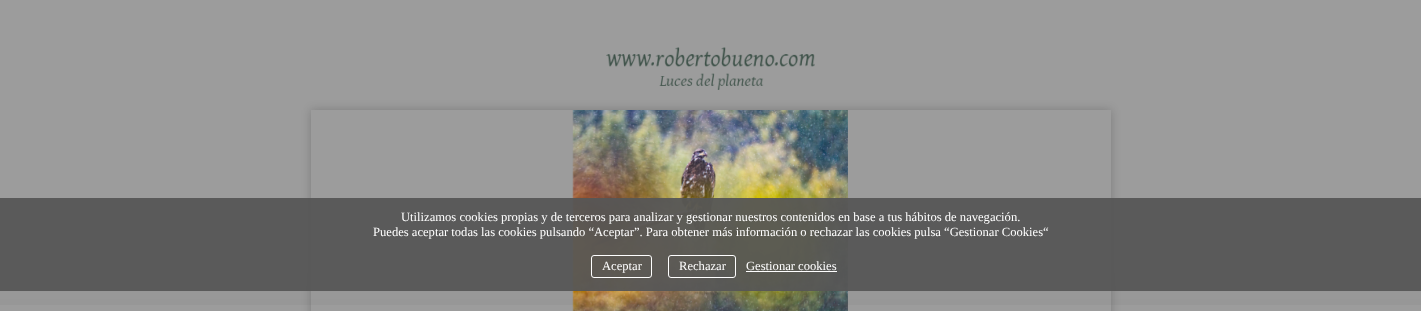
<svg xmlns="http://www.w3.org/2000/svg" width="1421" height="311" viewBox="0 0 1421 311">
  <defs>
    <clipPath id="clip1"><path d="M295 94H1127V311H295ZM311 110H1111V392H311Z" clip-rule="evenodd"/></clipPath>
  </defs>
  <rect width="100%" height="100%" fill="#9c9c9c"/>
  <image x="0" y="273" width="1421" height="32" href="img/1.png"/>
  <image x="606" y="47" width="209" height="43" href="img/2.png"/>
  <g clip-path="url(#clip1)">
    <path d="M311 110h800v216H311z" fill="#00000033" filter="blur(5px)"/>
  </g>
  <image x="572" y="110" width="276" height="201" href="img/3.png"/>
  <path d="M0 198h1421v93H0z" fill="#565656f2"/>
  <rect x="591.5" y="255.5" width="60" height="22" rx="2.5" fill="none" stroke="#fff"/>
  <rect x="668.5" y="255.5" width="67" height="22" rx="2.5" fill="none" stroke="#fff"/>
  <path d="M746 271h91v1H746z" fill="#fff"/>
  <g font-family="Liberation Serif" font-size="12.6" fill="#fff">
    <text x="401" y="221">Utilizamos cookies propias y de terceros para analizar y gestionar nuestros contenidos en base a tus hábitos de navegación.</text>
    <text x="373" y="236">Puedes aceptar todas las cookies pulsando “Aceptar”. Para obtener más información o rechazar las cookies pulsa “Gestionar Cookies“</text>
    <text x="602" y="270">Aceptar</text>
    <text x="679" y="270">Rechazar</text>
    <text x="746" y="270">Gestionar cookies</text>
  </g>
</svg>
